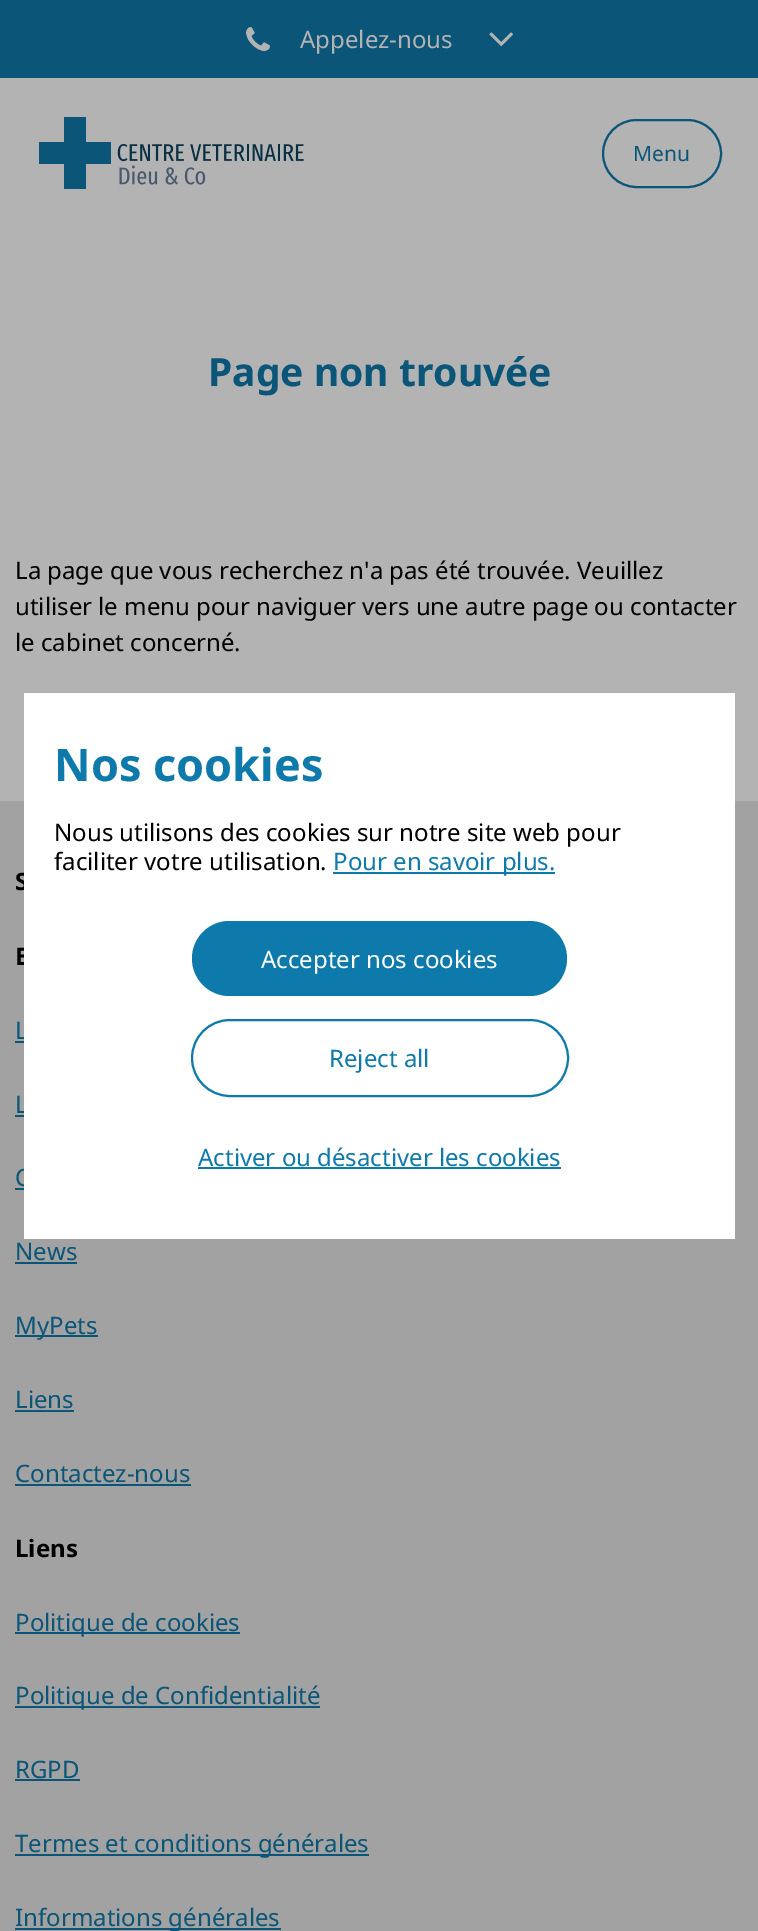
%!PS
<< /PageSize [758 1931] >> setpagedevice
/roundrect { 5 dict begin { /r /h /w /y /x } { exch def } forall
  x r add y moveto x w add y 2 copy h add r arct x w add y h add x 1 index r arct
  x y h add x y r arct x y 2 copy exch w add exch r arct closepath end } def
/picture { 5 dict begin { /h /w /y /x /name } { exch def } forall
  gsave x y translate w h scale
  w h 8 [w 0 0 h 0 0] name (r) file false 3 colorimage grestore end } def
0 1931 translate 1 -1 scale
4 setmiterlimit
0.702 setgray
0 0 758 1931 rectfill
0.039 0.333 0.471 setrgbcolor
0 0 758 78 rectfill
(img1.rgb) 246 27 24 25 picture
/NotoSans-Regular [24 0 0 -24 0 0] selectfont
0.702 setgray
300 48 moveto (Appelez-nous) show
(img2.rgb) 489 32 24 15 picture
(img3.rgb) 39 117 265 72 picture
0.039 0.333 0.471 setrgbcolor
2 setlinewidth
603 120 118 67 33.5 roundrect stroke
/NotoSans-Regular [21 0 0 -21 0 0] selectfont
633 161 moveto (Menu) show
/NotoSans-Bold [39 0 0 -39 0 0] selectfont
208 386 moveto (Page non trouvée) show
/NotoSans-Regular [24 0 0 -24 0 0] selectfont
0 setgray
15 579 moveto (La page que vous recherchez n'a pas été trouvée. Veuillez) show
15 615 moveto (utiliser le menu pour naviguer vers une autre page ou contacter) show
15 651 moveto (le cabinet concerné.) show
0.635 setgray
0 801 758 1130 rectfill
/NotoSans-Bold [24 0 0 -24 0 0] selectfont
0 setgray
15 890 moveto (S) show
15 965 moveto (E) show
/NotoSans-Regular [24 0 0 -24 0 0] selectfont
0.039 0.333 0.471 setrgbcolor
15 1039 moveto (L) show
15 1041 9 2 rectfill
15 1113 moveto (L) show
15 1115 9 2 rectfill
15 1186 moveto (C) show
15 1188 9 2 rectfill
15 1260 moveto (News) show
15 1262 62 2 rectfill
15 1335 83 2 rectfill
15 1334 moveto (MyPets) show
15 1408 moveto (Liens) show
15 1410 59 2 rectfill
15 1482 moveto (Contactez-nous) show
15 1484 176 2 rectfill
/NotoSans-Bold [24 0 0 -24 0 0] selectfont
0 setgray
15 1557 moveto (Liens) show
0.039 0.333 0.471 setrgbcolor
15 1632 225 2 rectfill
/NotoSans-Regular [24 0 0 -24 0 0] selectfont
15 1631 moveto (Politique de cookies) show
15 1706 305 2 rectfill
15 1704 moveto (Politique de Confidentialité) show
15 1778 moveto (RGPD) show
15 1779 65 2 rectfill
15 1854 354 2 rectfill
15 1852 moveto (Termes et conditions générales) show
15 1928 266 2 rectfill
15 1926 moveto (Informations générales) show
1 setgray
24 693 711 546 rectfill
/NotoSans-Bold [45 0 0 -45 0 0] selectfont
0.055 0.478 0.671 setrgbcolor
54 781 moveto (Nos cookies) show
/NotoSans-Regular [24 0 0 -24 0 0] selectfont
0 setgray
54 841 moveto (Nous utilisons des cookies sur notre site web pour) show
54 870 moveto (faciliter votre utilisation.) show
0.055 0.478 0.671 setrgbcolor
333 872 222 2 rectfill
333 870 moveto (Pour en savoir plus.) show
192 921 375 75 37.5 roundrect fill
1 setgray
261 968 moveto (Accepter nos cookies) show
0.055 0.478 0.671 setrgbcolor
192 1020 376 76 38 roundrect stroke
329 1067 moveto (Reject all) show
198 1166 moveto (Activer ou désactiver les cookies) show
198 1167 363 2 rectfill
showpage
